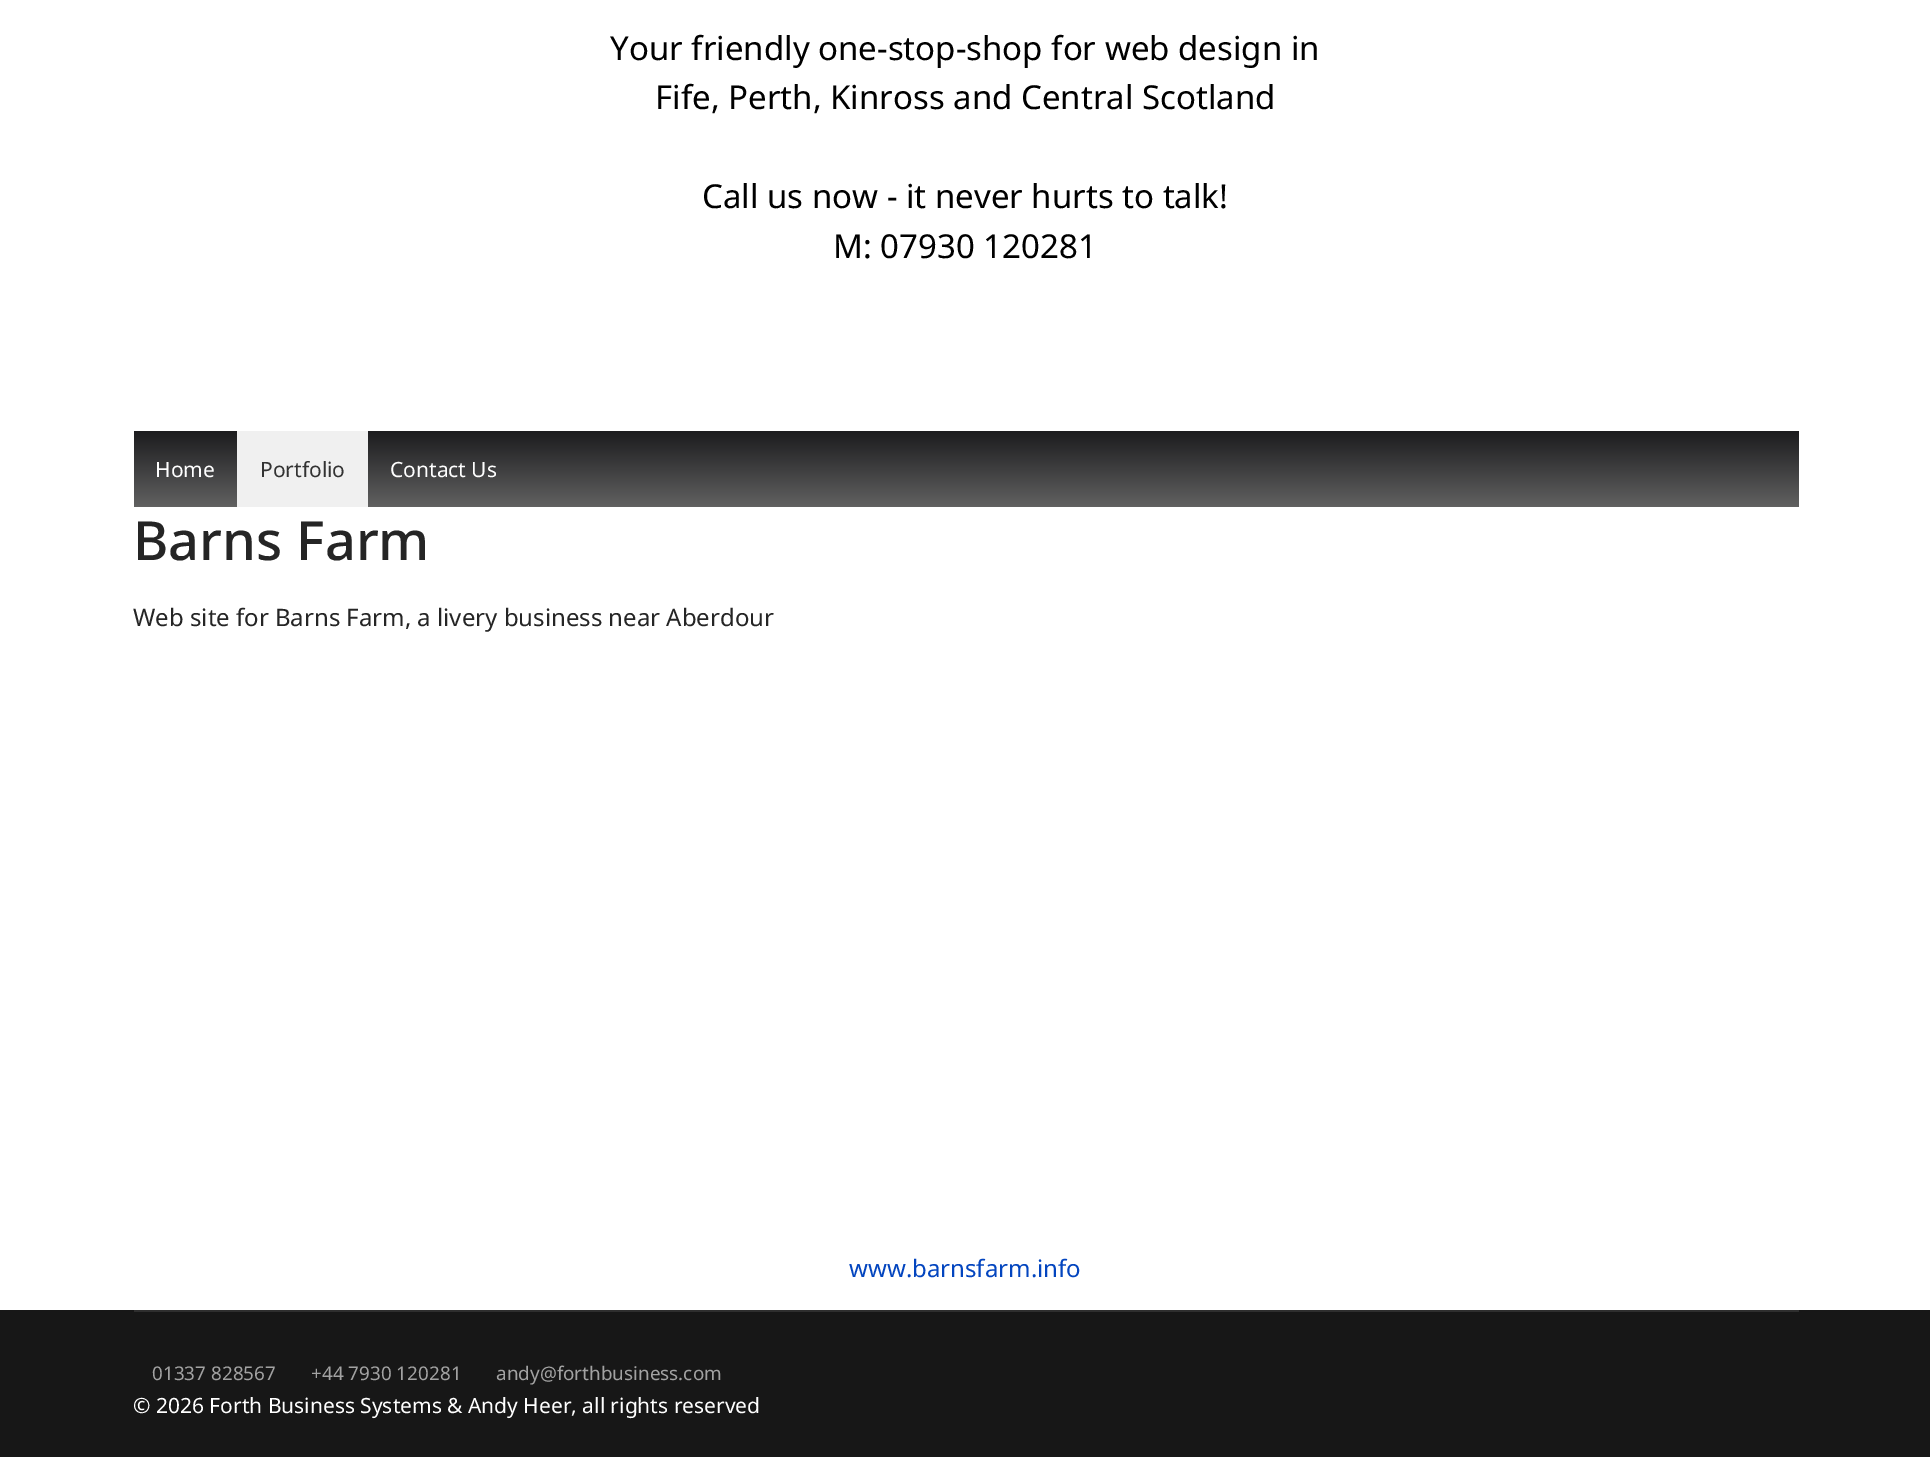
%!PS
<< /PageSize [1930 1457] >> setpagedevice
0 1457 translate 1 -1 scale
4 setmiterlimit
1 setgray
0 0 1930 1457 rectfill
/NotoSans-Regular [33 0 0 -33 0 0] selectfont
0 setgray
610 60 moveto (Your friendly one-stop-shop for web design in) show
655 109 moveto (Fife, Perth, Kinross and Central Scotland) show
702 208 moveto (Call us now - it never hurts to talk!) show
833 258 moveto (M: 07930 120281) show
gsave newpath 134 431 moveto 1799 431 lineto 1799 507 lineto 134 507 lineto closepath clip newpath
<< /ShadingType 2 /ColorSpace /DeviceRGB /Coords [966 430 966 507] /Extend [true true] /Function << /FunctionType 2 /Domain [0 1] /C0 [0.106 0.106 0.114] /C1 [0.38 0.38 0.38] /N 1 >> >> shfill grestore
/NotoSans-Regular [21 0 0 -21 0 0] selectfont
1 setgray
155 477 moveto (Home) show
0.941 setgray
237 431 131 76 rectfill
0.2 setgray
260 477 moveto (Portfolio) show
1 setgray
390 477 moveto (Contact Us) show
/NotoSans-Medium [54 0 0 -54 0 0] selectfont
0.145 setgray
133 560 moveto (Barns Farm) show
/NotoSans-Regular [24 0 0 -24 0 0] selectfont
133 626 moveto (Web site for Barns Farm, a livery business near Aberdour) show
0.012 0.271 0.749 setrgbcolor
849 1277 moveto (www.barnsfarm.info) show
0.09 setgray
0 1310 1930 147 rectfill
0.18 setgray
134 1310 1665 2 rectfill
/NotoSans-Regular [18.9 0 0 -18.9 0 0] selectfont
0.635 setgray
152 1380 moveto (01337 828567) show
311 1380 moveto (+44 7930 120281) show
496 1380 moveto (andy@forthbusiness.com) show
/NotoSans-Regular [21 0 0 -21 0 0] selectfont
1 setgray
133 1413 moveto (© 2026 Forth Business Systems & Andy Heer, all rights reserved) show
showpage
